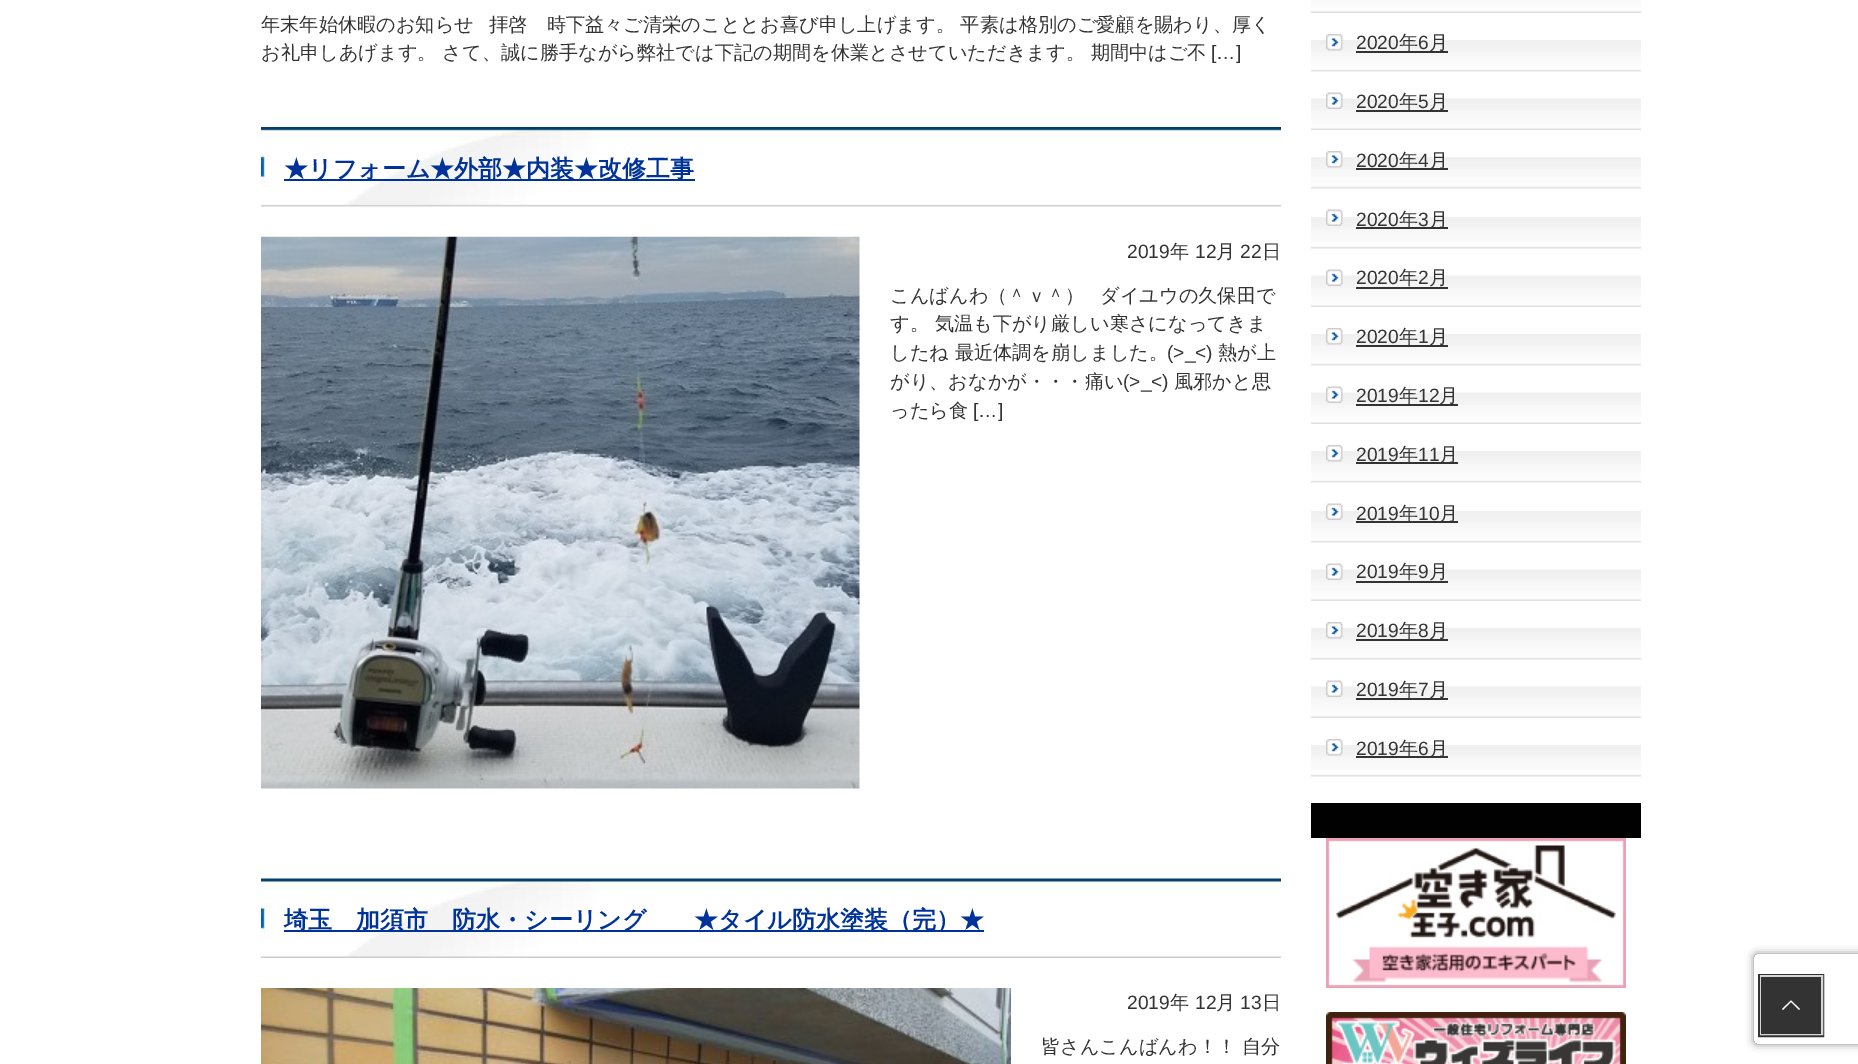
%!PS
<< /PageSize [1858 1064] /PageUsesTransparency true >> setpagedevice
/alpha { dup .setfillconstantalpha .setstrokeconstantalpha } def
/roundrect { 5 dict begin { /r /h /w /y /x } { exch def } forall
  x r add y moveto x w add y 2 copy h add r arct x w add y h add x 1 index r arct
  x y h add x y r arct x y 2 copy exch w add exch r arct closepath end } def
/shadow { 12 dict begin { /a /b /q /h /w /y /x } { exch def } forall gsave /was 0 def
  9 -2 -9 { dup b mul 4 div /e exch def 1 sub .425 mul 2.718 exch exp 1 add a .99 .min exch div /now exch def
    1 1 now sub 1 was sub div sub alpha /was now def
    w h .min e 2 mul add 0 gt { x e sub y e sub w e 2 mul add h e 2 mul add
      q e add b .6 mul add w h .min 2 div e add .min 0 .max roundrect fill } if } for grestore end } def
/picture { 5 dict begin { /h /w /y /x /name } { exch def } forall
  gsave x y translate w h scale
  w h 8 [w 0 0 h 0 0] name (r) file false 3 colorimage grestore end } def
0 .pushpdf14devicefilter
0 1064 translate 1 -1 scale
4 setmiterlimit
1 setgray
0 0 1858 1064 rectfill
/WenQuanYiZenHei-Medium [19.2 0 0 -19.2 0 0] selectfont
0.2 setgray
261 31 moveto (年末年始休暇のお知らせ) show
489 31 moveto (拝啓　時下益々ご清栄のこととお喜び申し上げます。 平素は格別のご愛顧を賜わり、厚く) show
261 59 moveto (お礼申しあげます。 さて、誠に勝手ながら弊社では下記の期間を休業とさせていただきます。 期間中はご不) show
/LiberationSans-Regular [19.2 0 0 -19.2 0 0] selectfont
1211 59 moveto ([…]) show
(img1.rgb) 261 127 1020 80 picture
0 0.2 0.6 setrgbcolor
284 179 411 2 rectfill
/WenQuanYiZenHei-Bold [24 0 0 -24 0 0] selectfont
284 177 moveto (★リフォーム★外部★内装★改修工事) show
(img2.rgb) 261 236 599 553 picture
/LiberationSans-Regular [19.2 0 0 -19.2 0 0] selectfont
0.2 setgray
1127 258 moveto (2019) show
/WenQuanYiZenHei-Medium [19.2 0 0 -19.2 0 0] selectfont
1170 258 moveto (年) show
/LiberationSans-Regular [19.2 0 0 -19.2 0 0] selectfont
1195 258 moveto (12) show
/WenQuanYiZenHei-Medium [19.2 0 0 -19.2 0 0] selectfont
1216 258 moveto (月) show
/LiberationSans-Regular [19.2 0 0 -19.2 0 0] selectfont
1240 258 moveto (22) show
/WenQuanYiZenHei-Medium [19.2 0 0 -19.2 0 0] selectfont
1262 258 moveto (日) show
890 302 moveto (こんばんわ（＾ｖ＾）) show
1100 302 moveto (ダイユウの久保田で) show
890 330 moveto (す。 気温も下がり厳しい寒さになってきま) show
890 359 moveto (したね 最近体調を崩しました。) show
/LiberationSans-Regular [19.2 0 0 -19.2 0 0] selectfont
1167 359 moveto (\(>_<\)) show
/WenQuanYiZenHei-Medium [19.2 0 0 -19.2 0 0] selectfont
1218 359 moveto (熱が上) show
890 388 moveto (がり、おなかが・・・痛い) show
/LiberationSans-Regular [19.2 0 0 -19.2 0 0] selectfont
1123 388 moveto (\(>_<\)) show
/WenQuanYiZenHei-Medium [19.2 0 0 -19.2 0 0] selectfont
1174 388 moveto (風邪かと思) show
890 417 moveto (ったら食) show
/LiberationSans-Regular [19.2 0 0 -19.2 0 0] selectfont
973 417 moveto ([…]) show
(img3.rgb) 261 878 1020 80 picture
0 0.2 0.6 setrgbcolor
284 930 700 2 rectfill
/WenQuanYiZenHei-Bold [24 0 0 -24 0 0] selectfont
284 928 moveto (埼玉　加須市　防水・シーリング　　★タイル防水塗装（完）★) show
(img4.rgb) 261 988 750 76 picture
/LiberationSans-Regular [19.2 0 0 -19.2 0 0] selectfont
0.2 setgray
1127 1009 moveto (2019) show
/WenQuanYiZenHei-Medium [19.2 0 0 -19.2 0 0] selectfont
1170 1009 moveto (年) show
/LiberationSans-Regular [19.2 0 0 -19.2 0 0] selectfont
1195 1009 moveto (12) show
/WenQuanYiZenHei-Medium [19.2 0 0 -19.2 0 0] selectfont
1216 1009 moveto (月) show
/LiberationSans-Regular [19.2 0 0 -19.2 0 0] selectfont
1240 1009 moveto (13) show
/WenQuanYiZenHei-Medium [19.2 0 0 -19.2 0 0] selectfont
1262 1009 moveto (日) show
1041 1053 moveto (皆さんこんばんわ！！ 自分) show
0.004 setgray
1311 803 330 35 rectfill
(img5.rgb) 1311 0 330 13 picture
(img6.rgb) 1311 40 330 32 picture
(img7.rgb) 1326 34 17 17 picture
/LiberationSans-Regular [19.2 0 0 -19.2 0 0] selectfont
0.2 setgray
1356 49 moveto (2020) show
1356 51 92 2 rectfill
/WenQuanYiZenHei-Medium [19.2 0 0 -19.2 0 0] selectfont
1399 49 moveto (年) show
/LiberationSans-Regular [19.2 0 0 -19.2 0 0] selectfont
1418 49 moveto (6) show
/WenQuanYiZenHei-Medium [19.2 0 0 -19.2 0 0] selectfont
1429 49 moveto (月) show
(img8.rgb) 1311 98 330 32 picture
(img9.rgb) 1326 92 17 17 picture
/LiberationSans-Regular [19.2 0 0 -19.2 0 0] selectfont
1356 108 moveto (2020) show
1356 110 92 2 rectfill
/WenQuanYiZenHei-Medium [19.2 0 0 -19.2 0 0] selectfont
1399 108 moveto (年) show
/LiberationSans-Regular [19.2 0 0 -19.2 0 0] selectfont
1418 108 moveto (5) show
/WenQuanYiZenHei-Medium [19.2 0 0 -19.2 0 0] selectfont
1429 108 moveto (月) show
(img6.rgb) 1311 157 330 32 picture
(img7.rgb) 1326 151 17 17 picture
/LiberationSans-Regular [19.2 0 0 -19.2 0 0] selectfont
1356 167 moveto (2020) show
1356 168 92 2 rectfill
/WenQuanYiZenHei-Medium [19.2 0 0 -19.2 0 0] selectfont
1399 167 moveto (年) show
/LiberationSans-Regular [19.2 0 0 -19.2 0 0] selectfont
1418 167 moveto (4) show
/WenQuanYiZenHei-Medium [19.2 0 0 -19.2 0 0] selectfont
1429 167 moveto (月) show
(img6.rgb) 1311 217 330 32 picture
(img10.rgb) 1326 209 17 17 picture
/LiberationSans-Regular [19.2 0 0 -19.2 0 0] selectfont
1356 226 moveto (2020) show
1356 227 92 2 rectfill
/WenQuanYiZenHei-Medium [19.2 0 0 -19.2 0 0] selectfont
1399 226 moveto (年) show
/LiberationSans-Regular [19.2 0 0 -19.2 0 0] selectfont
1418 226 moveto (3) show
/WenQuanYiZenHei-Medium [19.2 0 0 -19.2 0 0] selectfont
1429 226 moveto (月) show
(img8.rgb) 1311 275 330 32 picture
(img9.rgb) 1326 269 17 17 picture
/LiberationSans-Regular [19.2 0 0 -19.2 0 0] selectfont
1356 284 moveto (2020) show
/WenQuanYiZenHei-Medium [19.2 0 0 -19.2 0 0] selectfont
1399 284 moveto (年) show
/LiberationSans-Regular [19.2 0 0 -19.2 0 0] selectfont
1418 284 moveto (2) show
/WenQuanYiZenHei-Medium [19.2 0 0 -19.2 0 0] selectfont
1429 284 moveto (月) show
1356 287 92 2 rectfill
(img6.rgb) 1311 334 330 32 picture
(img7.rgb) 1326 328 17 17 picture
/LiberationSans-Regular [19.2 0 0 -19.2 0 0] selectfont
1356 343 moveto (2020) show
1356 345 92 2 rectfill
/WenQuanYiZenHei-Medium [19.2 0 0 -19.2 0 0] selectfont
1399 343 moveto (年) show
/LiberationSans-Regular [19.2 0 0 -19.2 0 0] selectfont
1418 343 moveto (1) show
/WenQuanYiZenHei-Medium [19.2 0 0 -19.2 0 0] selectfont
1429 343 moveto (月) show
(img8.rgb) 1311 392 330 32 picture
(img9.rgb) 1326 386 17 17 picture
/LiberationSans-Regular [19.2 0 0 -19.2 0 0] selectfont
1356 402 moveto (2019) show
1356 404 102 2 rectfill
/WenQuanYiZenHei-Medium [19.2 0 0 -19.2 0 0] selectfont
1399 402 moveto (年) show
/LiberationSans-Regular [19.2 0 0 -19.2 0 0] selectfont
1418 402 moveto (12) show
/WenQuanYiZenHei-Medium [19.2 0 0 -19.2 0 0] selectfont
1439 402 moveto (月) show
(img6.rgb) 1311 451 330 32 picture
(img7.rgb) 1326 445 17 17 picture
/LiberationSans-Regular [19.2 0 0 -19.2 0 0] selectfont
1356 461 moveto (2019) show
1356 462 102 2 rectfill
/WenQuanYiZenHei-Medium [19.2 0 0 -19.2 0 0] selectfont
1399 461 moveto (年) show
/LiberationSans-Regular [19.2 0 0 -19.2 0 0] selectfont
1418 461 moveto (11) show
/WenQuanYiZenHei-Medium [19.2 0 0 -19.2 0 0] selectfont
1439 461 moveto (月) show
(img6.rgb) 1311 511 330 32 picture
(img10.rgb) 1326 503 17 17 picture
/LiberationSans-Regular [19.2 0 0 -19.2 0 0] selectfont
1356 520 moveto (2019) show
1356 521 102 2 rectfill
/WenQuanYiZenHei-Medium [19.2 0 0 -19.2 0 0] selectfont
1399 520 moveto (年) show
/LiberationSans-Regular [19.2 0 0 -19.2 0 0] selectfont
1418 520 moveto (10) show
/WenQuanYiZenHei-Medium [19.2 0 0 -19.2 0 0] selectfont
1439 520 moveto (月) show
(img8.rgb) 1311 569 330 32 picture
(img9.rgb) 1326 563 17 17 picture
/LiberationSans-Regular [19.2 0 0 -19.2 0 0] selectfont
1356 578 moveto (2019) show
/WenQuanYiZenHei-Medium [19.2 0 0 -19.2 0 0] selectfont
1399 578 moveto (年) show
/LiberationSans-Regular [19.2 0 0 -19.2 0 0] selectfont
1418 578 moveto (9) show
/WenQuanYiZenHei-Medium [19.2 0 0 -19.2 0 0] selectfont
1429 578 moveto (月) show
1356 581 92 2 rectfill
(img6.rgb) 1311 628 330 32 picture
(img7.rgb) 1326 622 17 17 picture
/LiberationSans-Regular [19.2 0 0 -19.2 0 0] selectfont
1356 637 moveto (2019) show
1356 639 92 2 rectfill
/WenQuanYiZenHei-Medium [19.2 0 0 -19.2 0 0] selectfont
1399 637 moveto (年) show
/LiberationSans-Regular [19.2 0 0 -19.2 0 0] selectfont
1418 637 moveto (8) show
/WenQuanYiZenHei-Medium [19.2 0 0 -19.2 0 0] selectfont
1429 637 moveto (月) show
(img8.rgb) 1311 686 330 32 picture
(img9.rgb) 1326 680 17 17 picture
/LiberationSans-Regular [19.2 0 0 -19.2 0 0] selectfont
1356 696 moveto (2019) show
1356 698 92 2 rectfill
/WenQuanYiZenHei-Medium [19.2 0 0 -19.2 0 0] selectfont
1399 696 moveto (年) show
/LiberationSans-Regular [19.2 0 0 -19.2 0 0] selectfont
1418 696 moveto (7) show
/WenQuanYiZenHei-Medium [19.2 0 0 -19.2 0 0] selectfont
1429 696 moveto (月) show
(img6.rgb) 1311 745 330 32 picture
(img7.rgb) 1326 739 17 17 picture
/LiberationSans-Regular [19.2 0 0 -19.2 0 0] selectfont
1356 755 moveto (2019) show
1356 756 92 2 rectfill
/WenQuanYiZenHei-Medium [19.2 0 0 -19.2 0 0] selectfont
1399 755 moveto (年) show
/LiberationSans-Regular [19.2 0 0 -19.2 0 0] selectfont
1418 755 moveto (6) show
/WenQuanYiZenHei-Medium [19.2 0 0 -19.2 0 0] selectfont
1429 755 moveto (月) show
(img11.rgb) 1326 838 300 150 picture
(img12.rgb) 1326 1012 300 52 picture
gsave
newpath 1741 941 moveto 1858 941 lineto 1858 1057 lineto 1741 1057 lineto closepath 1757 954 moveto 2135 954 lineto 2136.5 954 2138 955.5 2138 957 curveto 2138 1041 lineto 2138 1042.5 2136.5 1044 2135 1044 curveto 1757 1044 lineto 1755.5 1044 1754 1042.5 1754 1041 curveto 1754 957 lineto 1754 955.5 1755.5 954 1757 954 curveto closepath eoclip newpath
0.502 setgray
1754 954 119 90 3 4 1 shadow
grestore
3 setlinewidth
1759.5 975.5 63 60 rectstroke
0.8 alpha
1 setgray
2 setlinewidth
1761 976 61 58 rectstroke
1 alpha
0.2 setgray
1761 977 60 57 rectfill
1 setgray
newpath 1800 1009 moveto 1799 1010 lineto 1791 1002 lineto 1783 1010 lineto 1782 1009 lineto 1791 1000.5 lineto closepath fill
.poppdf14devicefilter showpage
